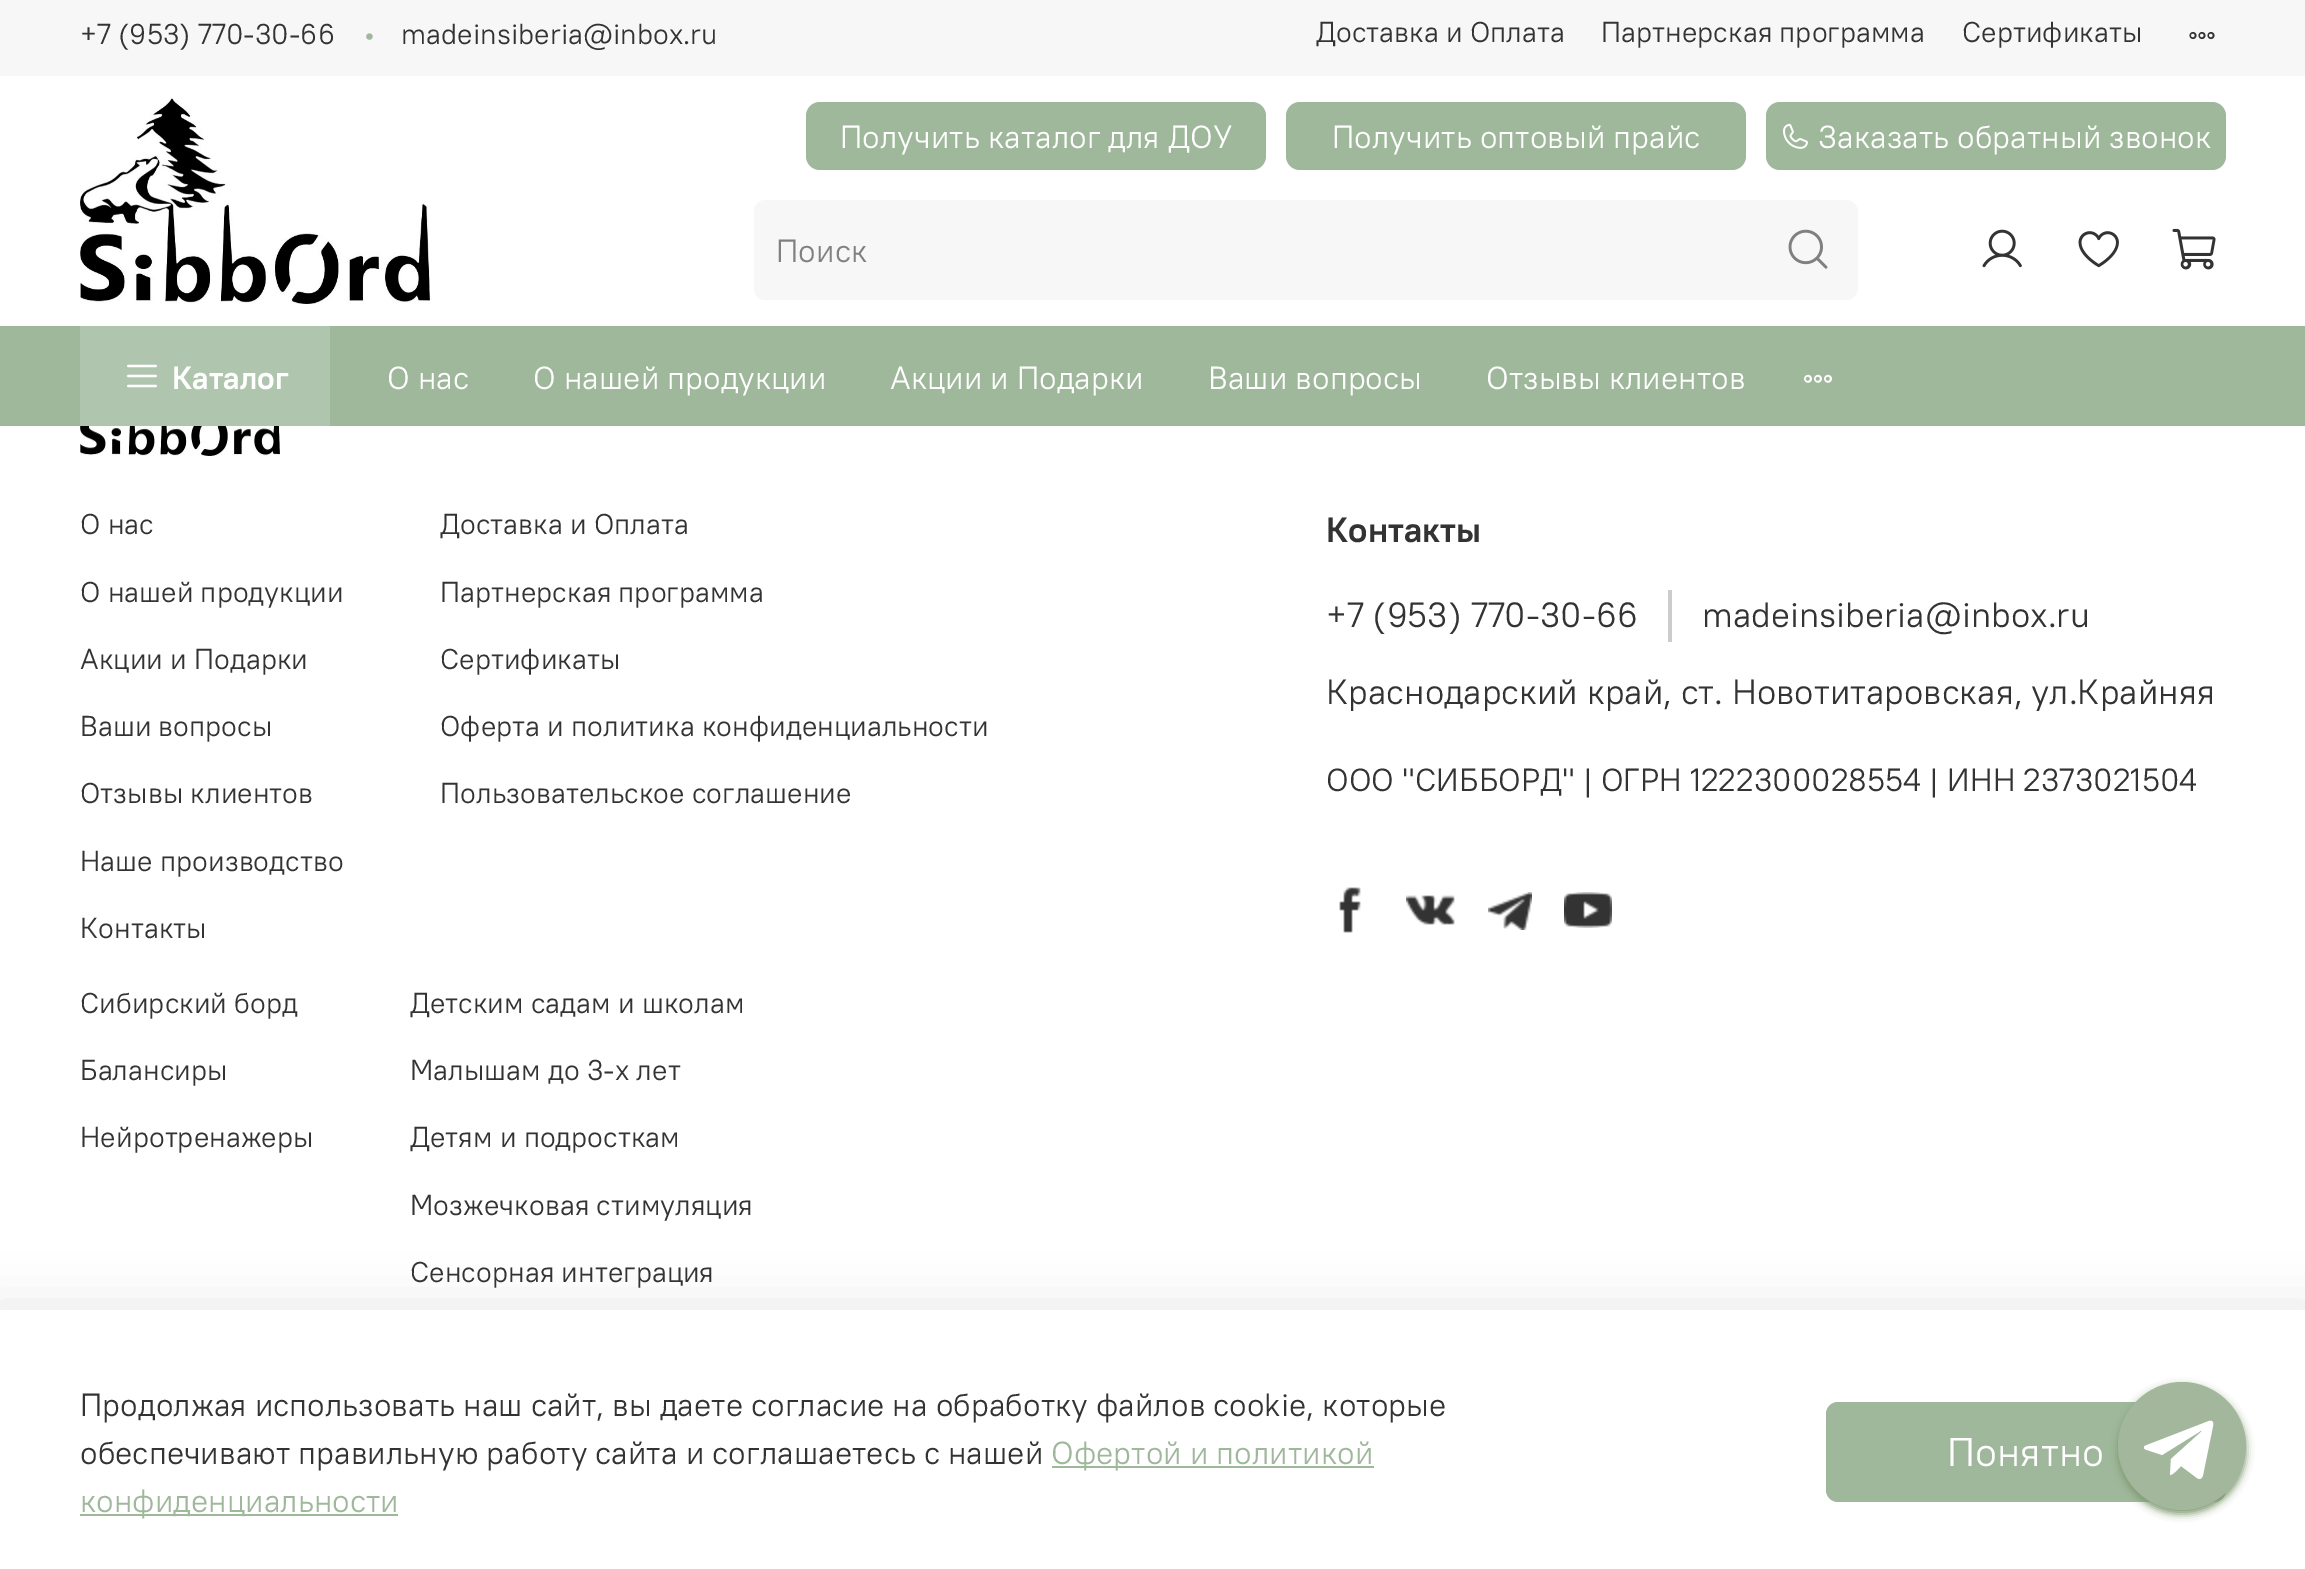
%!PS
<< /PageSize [2305 1569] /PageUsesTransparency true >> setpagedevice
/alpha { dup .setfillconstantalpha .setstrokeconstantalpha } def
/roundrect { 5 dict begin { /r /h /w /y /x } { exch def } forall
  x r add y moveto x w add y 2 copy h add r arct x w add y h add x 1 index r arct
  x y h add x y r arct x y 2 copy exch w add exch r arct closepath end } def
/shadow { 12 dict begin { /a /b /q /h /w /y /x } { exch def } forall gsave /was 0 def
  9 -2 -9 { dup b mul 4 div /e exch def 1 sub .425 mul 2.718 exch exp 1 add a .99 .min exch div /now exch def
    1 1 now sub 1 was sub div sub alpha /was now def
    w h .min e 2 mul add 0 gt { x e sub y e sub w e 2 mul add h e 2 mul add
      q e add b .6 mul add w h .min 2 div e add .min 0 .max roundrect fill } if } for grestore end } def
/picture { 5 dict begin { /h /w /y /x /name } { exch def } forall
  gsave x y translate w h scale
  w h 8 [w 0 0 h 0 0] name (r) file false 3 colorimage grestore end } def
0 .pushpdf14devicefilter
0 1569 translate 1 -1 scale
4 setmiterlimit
1 setgray
0 0 2305 1569 rectfill
0.969 setgray
0 0 2305 76 rectfill
/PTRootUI-Regular [28.75 0 0 -28.75 0 0] selectfont
0.2 setgray
80 44 moveto (+7 \(953\) 770-30-66) show
0.624 0.722 0.608 setrgbcolor
363 44 moveto (•) show
0.2 setgray
401 44 moveto (madeinsiberia@inbox.ru) show
1316 42 moveto (Доставка и Оплата) show
1601 42 moveto (Партнерская программа) show
1962 42 moveto (Сертификаты) show
(img1.rgb) 2189 31 26 9 picture
(img2.rgb) 80 98 350 206 picture
0.624 0.722 0.608 setrgbcolor
806 102 460 68 14 roundrect fill
/PTRootUI-Regular [32 0 0 -32 0 0] selectfont
1 setgray
840 148 moveto (Получить каталог для ДОУ) show
0.624 0.722 0.608 setrgbcolor
1286 102 460 68 14 roundrect fill
1 setgray
1332 148 moveto (Получить оптовый прайс) show
0.624 0.722 0.608 setrgbcolor
1766 102 460 68 14 roundrect fill
(img3.rgb) 1783 123 25 26 picture
1 setgray
1818 148 moveto (Заказать обратный звонок) show
0.969 setgray
newpath 766 200 moveto 1758 200 lineto 1758 300 lineto 766 300 lineto 759.5 300 754 294.5 754 288 curveto 754 212 lineto 754 205.5 759.5 200 766 200 curveto closepath fill
newpath 766 200 moveto 1758 200 lineto 1758 300 lineto 766 300 lineto 759 300 754 295 754 288 curveto 754 212 lineto 754 205 759 200 766 200 curveto closepath 766 202 moveto 1758 202 lineto 1758 298 lineto 766 298 lineto 760 298 756 294 756 288 curveto 756 212 lineto 756 206 760 202 766 202 curveto closepath eofill
0.502 setgray
776 262 moveto (Поиск) show
0.969 setgray
newpath 1758 200 moveto 1846 200 lineto 1852.5 200 1858 205.5 1858 212 curveto 1858 288 lineto 1858 294.5 1852.5 300 1846 300 curveto 1758 300 lineto closepath fill
(img4.rgb) 1788 229 40 40 picture
(img5.rgb) 1982 229 40 39 picture
(img6.rgb) 2078 231 41 37 picture
(img7.rgb) 2172 228 44 42 picture
0.624 0.722 0.608 setrgbcolor
0 326 2305 100 rectfill
0.69 0.773 0.678 setrgbcolor
80 326 250 100 rectfill
(img8.rgb) 127 364 30 24 picture
/PTRootUI-Bold [32 0 0 -32 0 0] selectfont
1 setgray
172 389 moveto (Каталог) show
/PTRootUI-Regular [32 0 0 -32 0 0] selectfont
387 389 moveto (О нас) show
533 389 moveto (О нашей продукции) show
890 389 moveto (Акции и Подарки) show
1208 389 moveto (Ваши вопросы) show
1486 389 moveto (Отзывы клиентов) show
(img9.rgb) 1804 374 28 9 picture
(img10.rgb) 80 426 200 30 picture
/PTRootUI-Regular [28.75 0 0 -28.75 0 0] selectfont
0.2 setgray
80 534 moveto (О нас) show
80 602 moveto (О нашей продукции) show
80 669 moveto (Акции и Подарки) show
80 736 moveto (Ваши вопросы) show
80 803 moveto (Отзывы клиентов) show
80 871 moveto (Наше производство) show
80 938 moveto (Контакты) show
440 534 moveto (Доставка и Оплата) show
440 602 moveto (Партнерская программа) show
440 669 moveto (Сертификаты) show
440 736 moveto (Оферта и политика конфиденциальности) show
440 803 moveto (Пользовательское соглашение) show
80 1013 moveto (Cибирский борд) show
80 1080 moveto (Балансиры) show
80 1147 moveto (Нейротренажеры) show
410 1013 moveto (Детским садам и школам) show
410 1080 moveto (Малышам до 3-х лет) show
410 1147 moveto (Детям и подросткам) show
410 1215 moveto (Мозжечковая стимуляция) show
410 1282 moveto (Сенсорная интеграция) show
/PTRootUI-Bold [35.2 0 0 -35.2 0 0] selectfont
1326 542 moveto (Контакты) show
0.8 setgray
1668 590 4 52 rectfill
/PTRootUI-Regular [35.2 0 0 -35.2 0 0] selectfont
0.2 setgray
1326 627 moveto (+7 \(953\) 770-30-66) show
1702 627 moveto (madeinsiberia@inbox.ru) show
1326 704 moveto (Краснодарский край, ст. Новотитаровская, ул.Крайняя) show
/PTRootUI-Regular [32 0 0 -32 0 0] selectfont
1326 791 moveto (ООО "СИББОРД" | ОГРН 1222300028554 | ИНН 2373021504) show
(img11.rgb) 1339 887 22 46 picture
(img12.rgb) 1406 895 49 30 picture
(img13.rgb) 1488 892 44 38 picture
(img14.rgb) 1564 892 48 36 picture
0 setgray
-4 1304 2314 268 0 23 0.09 shadow
1 setgray
0 1310 2305 259 rectfill
0.2 setgray
80 1416 moveto (Продолжая использовать наш сайт, вы даете согласие на обработку файлов cookie, которые) show
80 1464 moveto (обеспечивают правильную работу сайта и соглашаетесь с нашей) show
0.624 0.722 0.608 setrgbcolor
1052 1466 322 2 rectfill
1051 1464 moveto (Офертой и политикой) show
80 1514 318 2 rectfill
80 1512 moveto (конфиденциальности) show
1826 1402 400 100 12 roundrect fill
/PTRootUI-Regular [40 0 0 -40 0 0] selectfont
1 setgray
1947 1466 moveto (Понятно) show
0.49 0.596 0.435 setrgbcolor
2118 1386 128 128 64 4 1 shadow
0.639 0.718 0.616 setrgbcolor
newpath 2182 1510 moveto 2217 1510 2246 1481 2246 1446 curveto 2246 1411 2217 1382 2182 1382 curveto 2147 1382 2118 1411 2118 1446 curveto 2118 1481 2147 1510 2182 1510 curveto closepath fill
1 setgray
newpath 2147 1445 moveto 2209 1421 lineto 2212 1420 2214 1422 2213 1426 curveto 2203 1475 lineto 2202 1479 2200 1480 2197 1478 curveto 2181 1466 lineto 2179 1468 2173 1475 2170 1475 curveto 2171 1459 lineto 2201 1432 lineto 2202 1431 2201 1430 2199 1432 curveto 2162 1455 lineto 2147 1450 lineto 2143 1449 2143 1446 2147 1445 curveto closepath fill
.poppdf14devicefilter showpage
